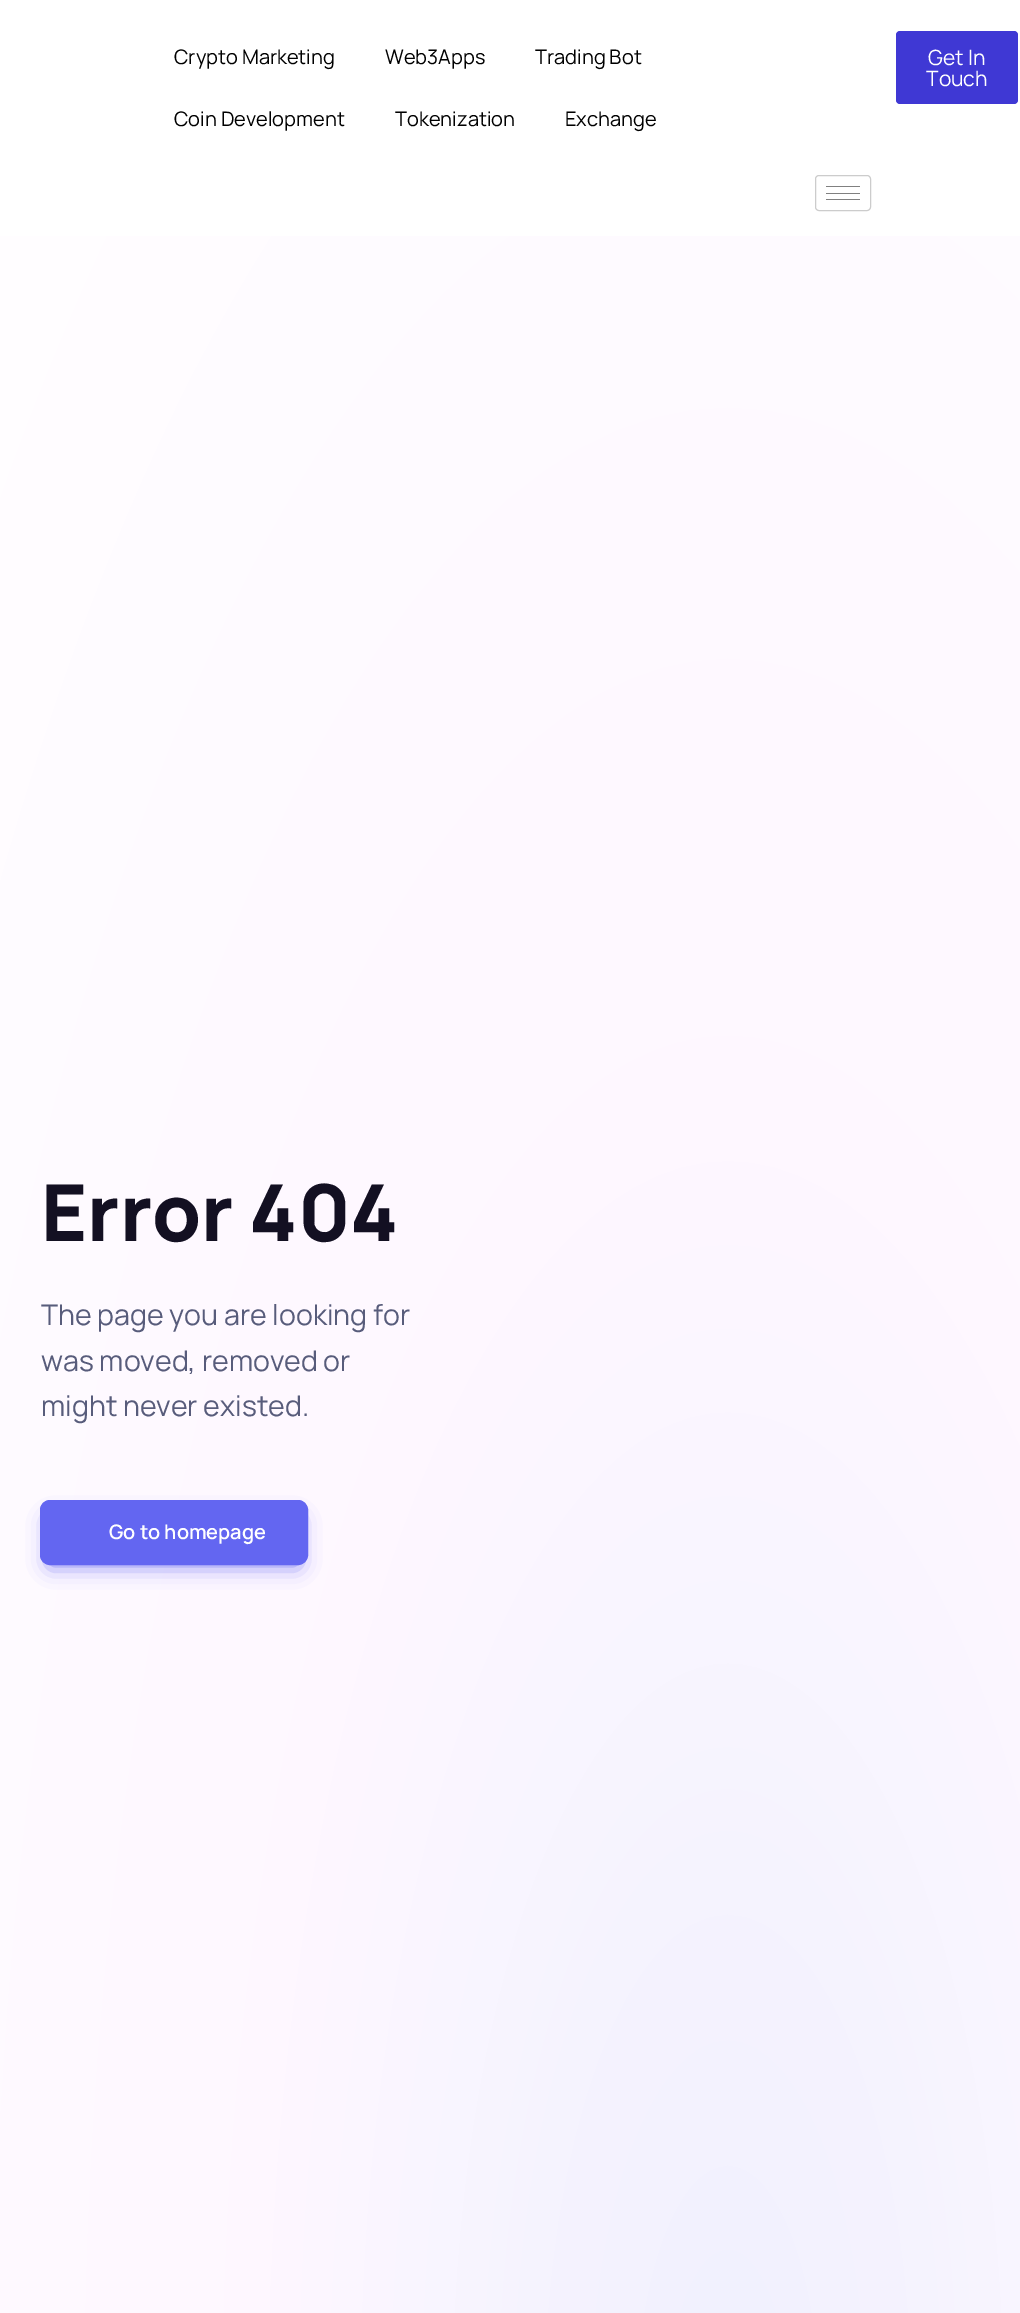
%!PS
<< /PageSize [1020 2313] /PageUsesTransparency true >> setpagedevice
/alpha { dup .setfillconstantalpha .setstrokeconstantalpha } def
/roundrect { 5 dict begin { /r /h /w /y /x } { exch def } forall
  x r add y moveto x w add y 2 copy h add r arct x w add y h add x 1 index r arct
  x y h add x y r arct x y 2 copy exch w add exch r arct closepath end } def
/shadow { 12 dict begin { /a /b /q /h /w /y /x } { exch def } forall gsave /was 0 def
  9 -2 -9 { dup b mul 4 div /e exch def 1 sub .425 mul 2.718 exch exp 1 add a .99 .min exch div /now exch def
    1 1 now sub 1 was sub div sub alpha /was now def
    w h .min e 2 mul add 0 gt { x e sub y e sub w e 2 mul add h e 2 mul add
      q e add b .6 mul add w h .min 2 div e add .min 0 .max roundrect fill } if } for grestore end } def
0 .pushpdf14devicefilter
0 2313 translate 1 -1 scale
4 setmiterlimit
1 setgray
0 0 1020 2313 rectfill
/Manrope-Regular [20 0 0 -20 0 0] selectfont
0 setgray
174 64 moveto (Crypto Marketing) show
385 64 moveto (Web3Apps) show
535 64 moveto (Trading Bot) show
174 126 moveto (Coin Development) show
395 126 moveto (Tokenization) show
565 126 moveto (Exchange) show
0.8 setgray
815.5 175.5 55 35 3.5 roundrect stroke
0.502 setgray
826 186 34 1 rectfill
826 193 34 1 rectfill
826 199 34 1 rectfill
0.247 0.22 0.831 setrgbcolor
896 31 122 73 4 roundrect fill
/Manrope-Regular [21 0 0 -21 0 0] selectfont
1 setgray
928 65 moveto (Get In) show
926 86 moveto (Touch) show
gsave newpath 0 236 moveto 1020 236 lineto 1020 2313 lineto 0 2313 lineto closepath clip newpath 728 2417 translate 1472 4019 scale
<< /ShadingType 3 /ColorSpace /DeviceRGB /Coords [0 0 0 0 0 1] /Extend [true true] /Function << /FunctionType 3 /Domain [0 1] /Functions [<< /FunctionType 2 /Domain [0 1] /C0 [0.941 0.945 0.996] /C1 [0.996 0.969 1] /N 1 >> << /FunctionType 2 /Domain [0 1] /C0 [0.996 0.969 1] /C1 [1 1 1] /N 1 >> << /FunctionType 2 /Domain [0 1] /C0 [1 1 1] /C1 [1 1 1] /N 1 >>] /Bounds [0.32 0.83] /Encode [0 1 0 1 0 1] >> >> shfill grestore
/Manrope-ExtraBold [78.5 0 0 -78.5 0 0] selectfont
0.075 0.063 0.133 setrgbcolor
41 1241 moveto (Error 404) show
/Manrope-Regular [28.5 0 0 -28.5 0 0] selectfont
0.345 0.361 0.482 setrgbcolor
41 1325 moveto (The page you are looking for) show
41 1371 moveto (was moved, removed or) show
41 1416 moveto (might never existed.) show
0.388 0.4 0.945 setrgbcolor
50 1520 248 45 0 11 0.9 shadow
40.5 1500.5 267 64 9.5 roundrect gsave fill grestore
stroke
/Manrope-SemiBold [20 0 0 -20 0 0] selectfont
1 setgray
109 1539 moveto (Go to homepage) show
.poppdf14devicefilter showpage
